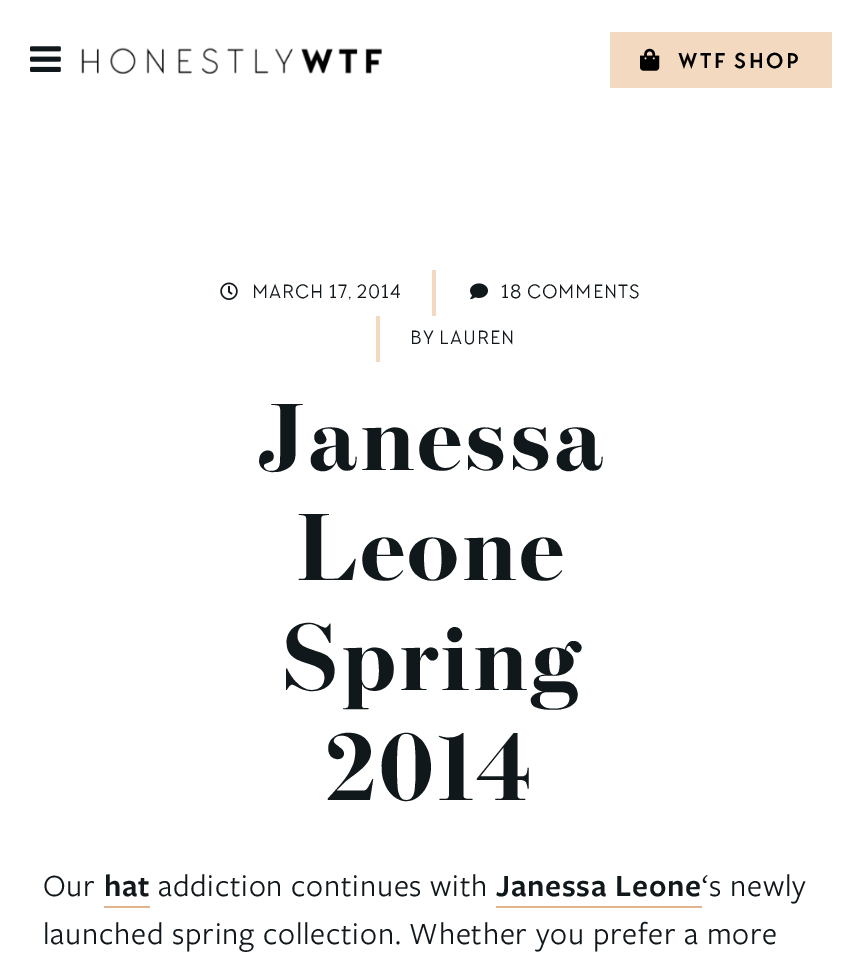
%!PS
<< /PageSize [861 967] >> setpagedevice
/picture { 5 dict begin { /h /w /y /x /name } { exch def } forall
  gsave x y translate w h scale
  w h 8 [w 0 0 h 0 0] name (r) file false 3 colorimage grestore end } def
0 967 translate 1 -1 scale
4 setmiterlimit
1 setgray
0 0 861 967 rectfill
(img1.rgb) 30 46 31 26 picture
(img2.rgb) 81 47 301 27 picture
0.949 0.851 0.753 setrgbcolor
610 32 222 56 rectfill
(img3.rgb) 640 48 20 23 picture
/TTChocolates-Bold [22 0 0 -22 0 0] selectfont
0 setgray
678 68 moveto 2.5 0 (WTF SHOP) ashow
0.949 0.851 0.753 setrgbcolor
432 270 4 46 rectfill
(img4.rgb) 220 282 18 18 picture
/TTChocolates-Regular [20 0 0 -20 0 0] selectfont
0.067 0.094 0.11 setrgbcolor
252 298 moveto 1 0 (MARCH 17, 2014) ashow
(img5.rgb) 470 283 18 17 picture
501 298 moveto 1 0 (18 COMMENTS) ashow
0.949 0.851 0.753 setrgbcolor
376 316 4 46 rectfill
0.067 0.094 0.11 setrgbcolor
410 344 moveto 1 0 (BY LAUREN) ashow
/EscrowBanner-Bold [96 0 0 -96 0 0] selectfont
257 470 moveto 2.5 0 (Janessa) ashow
296 580 moveto 2.5 0 (Leone) ashow
279 690 moveto 2.5 0 (Spring) ashow
326 800 moveto 2.5 0 (2014) ashow
/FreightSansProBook-Regular [32 0 0 -32 0 0] selectfont
43 896 moveto 0.75 0 (Our) ashow
/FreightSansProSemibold-SemiBold [32 0 0 -32 0 0] selectfont
104 896 moveto 0.75 0 (hat) ashow
0.886 0.71 0.557 setrgbcolor
104 906 46 2 rectfill
/FreightSansProBook-Regular [32 0 0 -32 0 0] selectfont
0.067 0.094 0.11 setrgbcolor
158 896 moveto 0.75 0 (addiction continues with) ashow
/FreightSansProSemibold-SemiBold [32 0 0 -32 0 0] selectfont
496 896 moveto 0.75 0 (Janessa Leone) ashow
0.886 0.71 0.557 setrgbcolor
496 906 206 2 rectfill
/FreightSansProBook-Regular [32 0 0 -32 0 0] selectfont
0.067 0.094 0.11 setrgbcolor
702 896 moveto 0.75 0 (‘s newly) ashow
43 944 moveto 0.75 0 (launched spring collection. Whether you prefer a more) ashow
showpage
